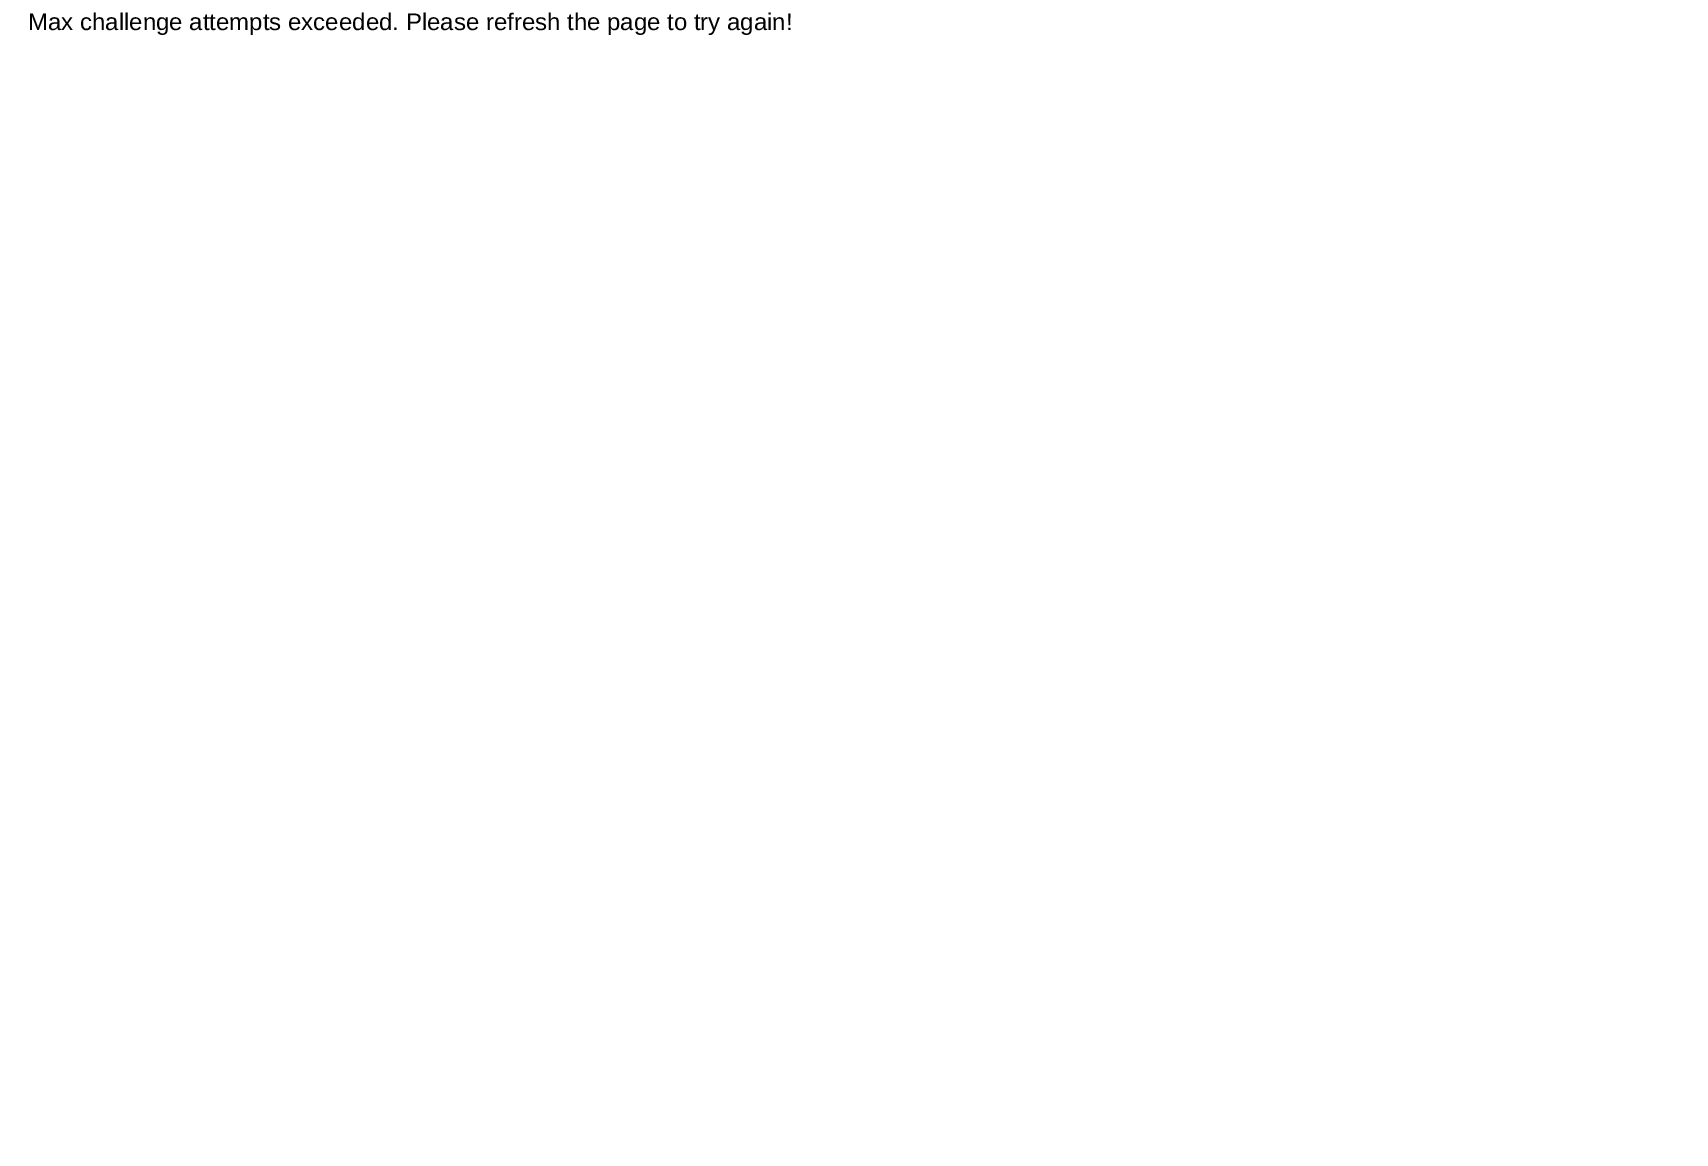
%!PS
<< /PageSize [1708 1166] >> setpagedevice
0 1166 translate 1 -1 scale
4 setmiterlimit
1 setgray
0 0 1708 1166 rectfill
/LiberationSans-Regular [24 0 0 -24 0 0] selectfont
0 setgray
28 30 moveto (Max challenge attempts exceeded. Please refresh the page to try again!) show
showpage
